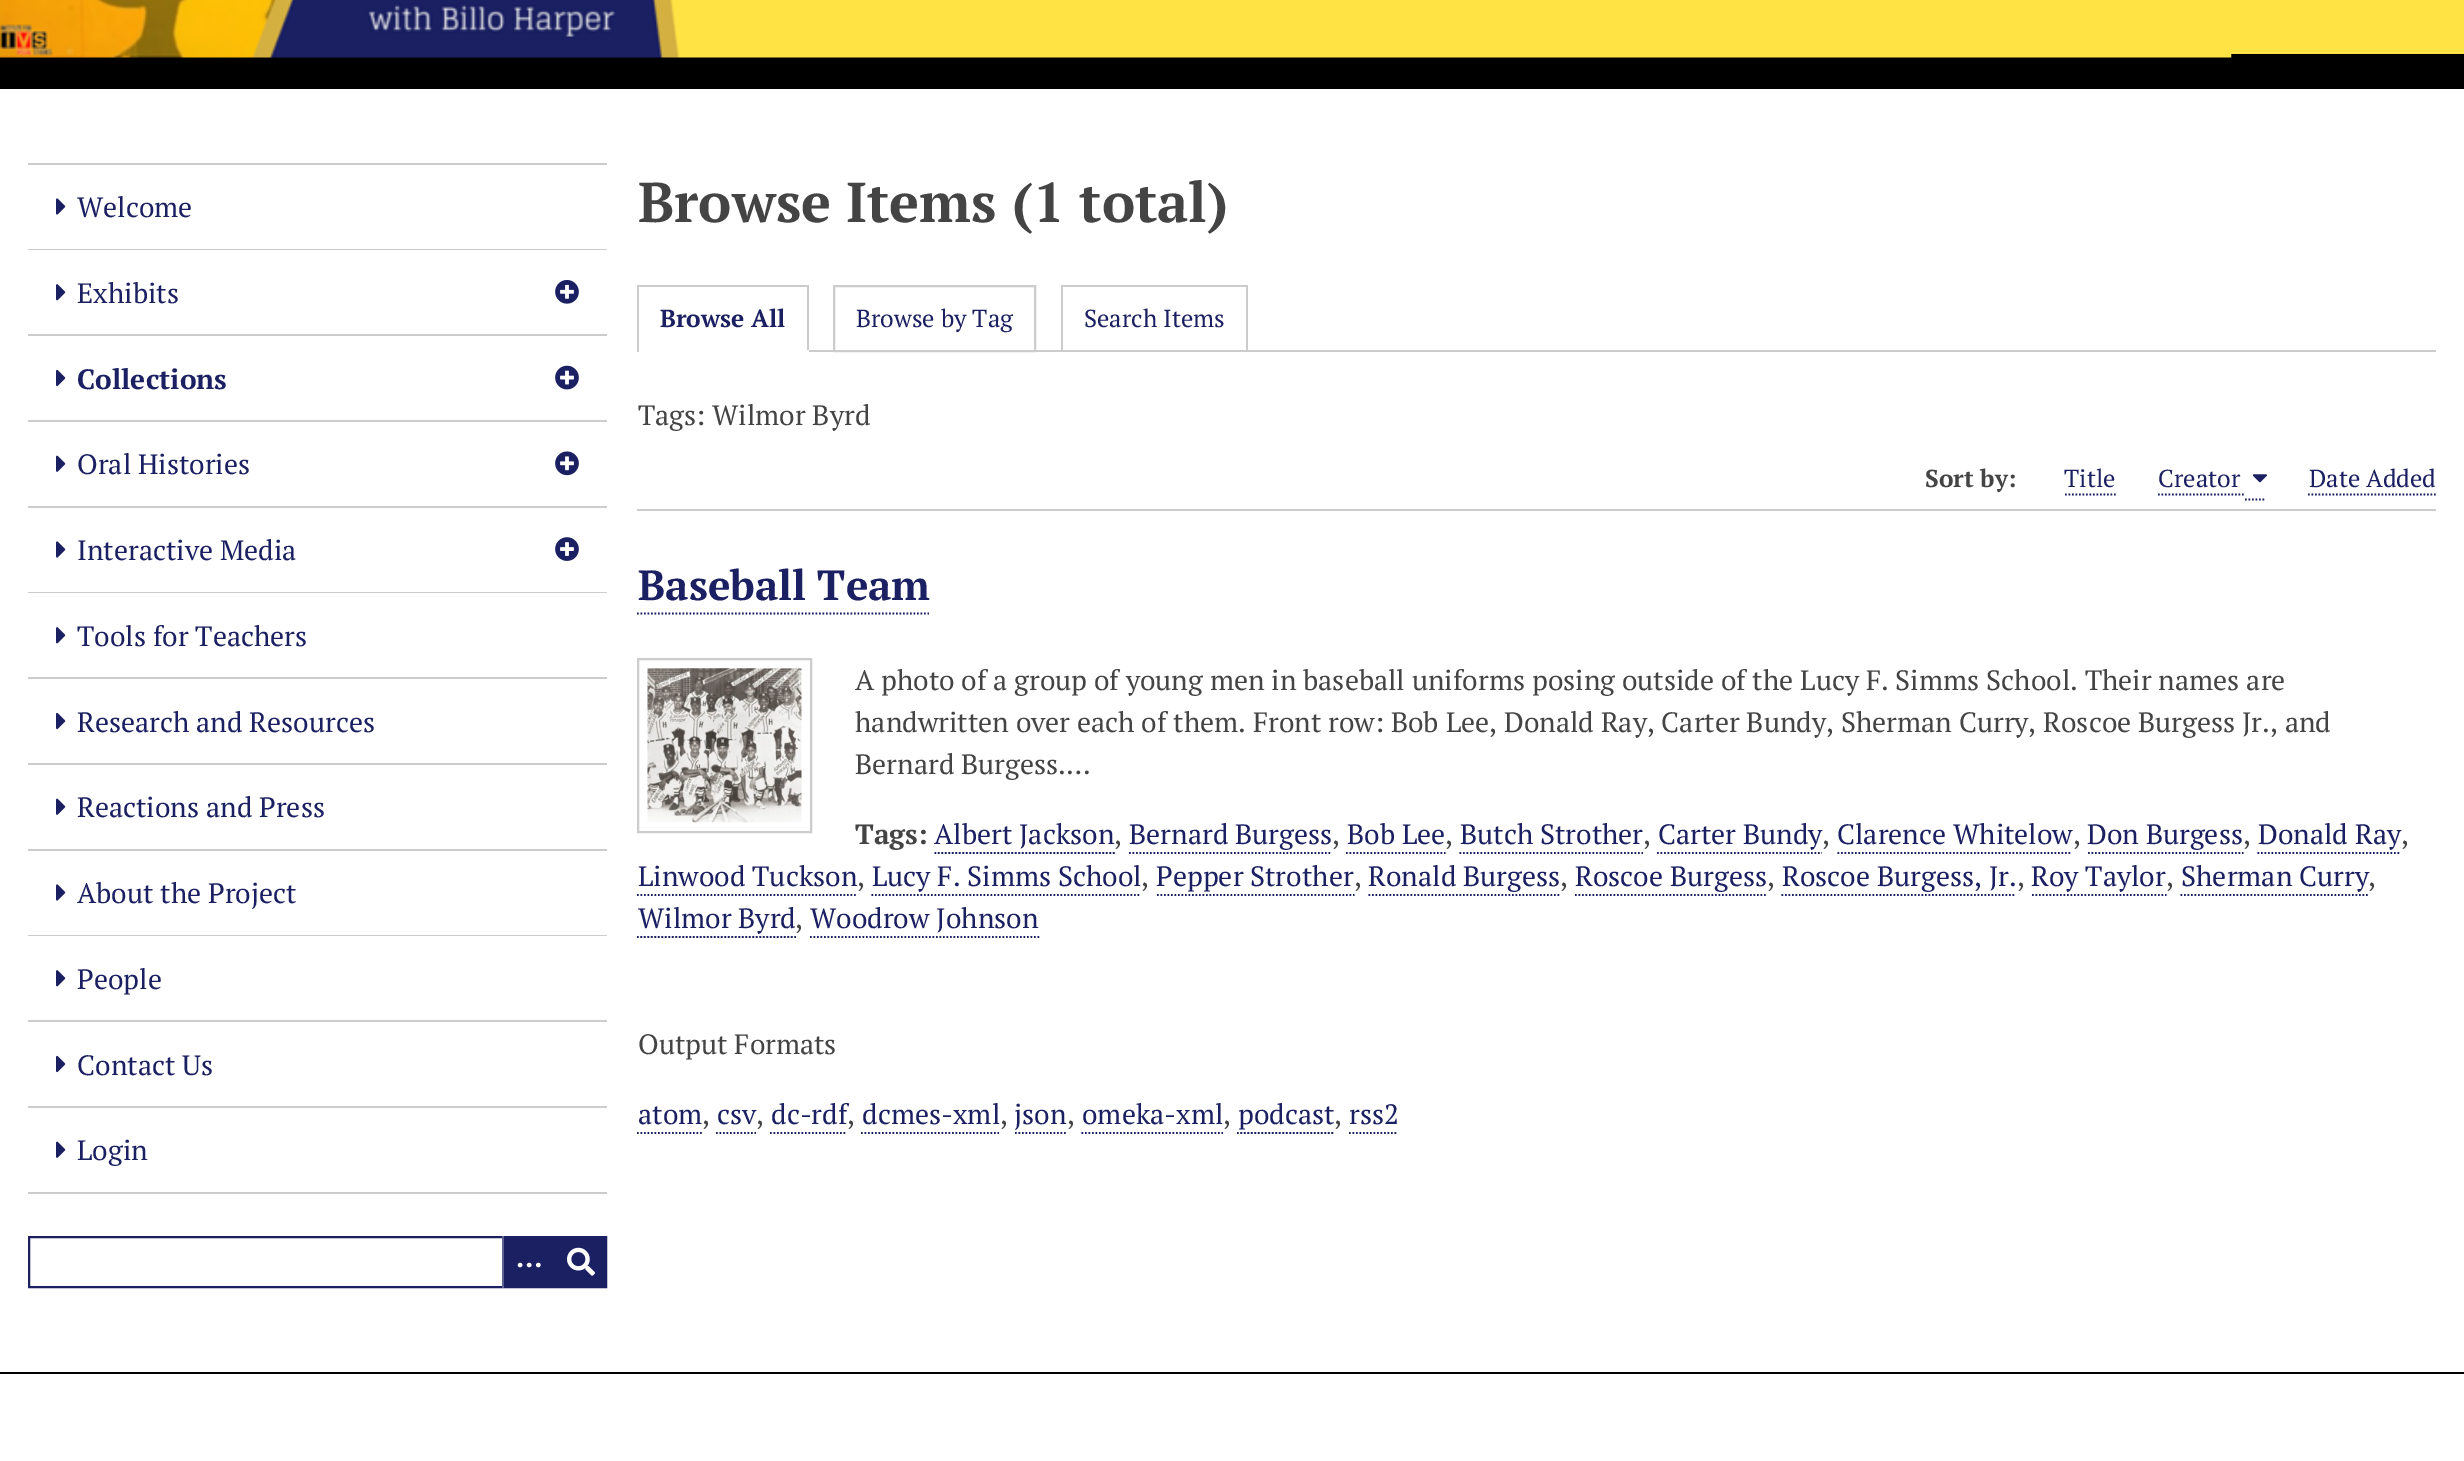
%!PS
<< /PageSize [2464 1461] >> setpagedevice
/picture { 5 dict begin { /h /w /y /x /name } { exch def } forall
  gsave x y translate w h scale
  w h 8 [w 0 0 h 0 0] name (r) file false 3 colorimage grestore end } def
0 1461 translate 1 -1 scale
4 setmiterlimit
1 setgray
0 0 2464 1461 rectfill
0 setgray
0 54 2464 35 rectfill
1 0.89 0.271 setrgbcolor
2231 0 233 54 rectfill
(img1.rgb) 0 0 2232 58 picture
0.8 setgray
28 163 579 2 rectfill
28 249 579 1 rectfill
(img2.rgb) 56 198 10 17 picture
/PTSerif-Regular [28 0 0 -28 0 0] selectfont
0.106 0.125 0.384 setrgbcolor
77 217 moveto (Welcome) show
0.8 setgray
28 334 579 2 rectfill
(img3.rgb) 56 284 10 17 picture
0.106 0.125 0.384 setrgbcolor
77 303 moveto (Exhibits) show
(img4.rgb) 555 280 24 24 picture
0.8 setgray
28 420 579 2 rectfill
(img5.rgb) 56 369 10 18 picture
/PTSerif-Bold [28 0 0 -28 0 0] selectfont
0.106 0.125 0.384 setrgbcolor
77 389 moveto (Collections) show
(img6.rgb) 555 365 24 25 picture
0.8 setgray
28 506 579 2 rectfill
(img7.rgb) 56 455 10 17 picture
/PTSerif-Regular [28 0 0 -28 0 0] selectfont
0.106 0.125 0.384 setrgbcolor
77 474 moveto (Oral Histories) show
(img8.rgb) 555 451 24 25 picture
0.8 setgray
28 592 579 1 rectfill
(img2.rgb) 56 541 10 17 picture
0.106 0.125 0.384 setrgbcolor
77 560 moveto (Interactive Media) show
(img9.rgb) 555 537 24 24 picture
0.8 setgray
28 677 579 2 rectfill
(img3.rgb) 56 627 10 17 picture
0.106 0.125 0.384 setrgbcolor
77 646 moveto (Tools for Teachers) show
0.8 setgray
28 763 579 2 rectfill
(img5.rgb) 56 712 10 18 picture
0.106 0.125 0.384 setrgbcolor
77 732 moveto (Research and Resources) show
0.8 setgray
28 849 579 2 rectfill
(img7.rgb) 56 798 10 17 picture
0.106 0.125 0.384 setrgbcolor
77 817 moveto (Reactions and Press) show
0.8 setgray
28 935 579 1 rectfill
(img2.rgb) 56 884 10 17 picture
0.106 0.125 0.384 setrgbcolor
77 903 moveto (About the Project) show
0.8 setgray
28 1020 579 2 rectfill
(img3.rgb) 56 970 10 17 picture
0.106 0.125 0.384 setrgbcolor
77 989 moveto (People) show
0.8 setgray
28 1106 579 2 rectfill
(img5.rgb) 56 1055 10 18 picture
0.106 0.125 0.384 setrgbcolor
77 1075 moveto (Contact Us) show
0.8 setgray
28 1192 579 2 rectfill
(img7.rgb) 56 1141 10 17 picture
0.106 0.125 0.384 setrgbcolor
77 1160 moveto (Login) show
2 setlinewidth
29 1237 577 50 rectstroke
504 1238 101 48 rectfill
0.373 0.388 0.569 setrgbcolor
502 1236 2 52 rectfill
/PTSerif-Bold [28 0 0 -28 0 0] selectfont
1 setgray
516 1267 moveto (…) show
(img10.rgb) 567 1247 28 29 picture
/PTSerif-Bold [56 0 0 -56 0 0] selectfont
0.267 setgray
638 222 moveto (Browse Items \(1 total\)) show
0.8 setgray
809 350 1627 2 rectfill
637 285 172 2 rectfill
807 285 2 67 rectfill
1 setgray
807 350 2 2 rectfill
0.8 setgray
637 285 2 67 rectfill
/PTSerif-Bold [24.5 0 0 -24.5 0 0] selectfont
0.106 0.125 0.384 setrgbcolor
660 327 moveto (Browse All) show
0.8 setgray
834 286 201 65 rectstroke
/PTSerif-Regular [24.5 0 0 -24.5 0 0] selectfont
0.106 0.125 0.384 setrgbcolor
856 327 moveto (Browse by Tag) show
0.8 setgray
1061 285 187 2 rectfill
1246 285 2 65 rectfill
1061 285 2 65 rectfill
0.106 0.125 0.384 setrgbcolor
1084 327 moveto (Search Items) show
/PTSerif-Regular [28 0 0 -28 0 0] selectfont
0.267 setgray
638 425 moveto (Tags: Wilmor Byrd) show
/PTSerif-Bold [24.5 0 0 -24.5 0 0] selectfont
1925 487 moveto (Sort by:) show
/PTSerif-Regular [24.5 0 0 -24.5 0 0] selectfont
0.106 0.125 0.384 setrgbcolor
2064 487 moveto (Title) show
1.8 setlinewidth
[1.75 1.75] 0 setdash
newpath 2065 494.5 moveto 2116 494.5 lineto stroke
newpath 2158 494.5 moveto 2245 494.5 lineto stroke
newpath 2245 499.5 moveto 2266 499.5 lineto stroke
2158 487 moveto (Creator) show
(img11.rgb) 2252 474 15 9 picture
2309 487 moveto (Date Added) show
newpath 2308 494.5 moveto 2436 494.5 lineto stroke
0.8 setgray
637 509 1799 2 rectfill
/PTSerif-Bold [42 0 0 -42 0 0] selectfont
0.106 0.125 0.384 setrgbcolor
638 600 moveto (Baseball Team) show
newpath 637 613.5 moveto 929 613.5 lineto stroke
0.8 setgray
2 setlinewidth
[] 0 setdash
638 659 173 173 rectstroke
(img12.rgb) 647 668 155 155 picture
/PTSerif-Regular [28 0 0 -28 0 0] selectfont
0.267 setgray
855 690 moveto (A photo of a group of young men in baseball uniforms posing outside of the Lucy F. Simms School. Their names are) show
855 732 moveto (handwritten over each of them. Front row: Bob Lee, Donald Ray, Carter Bundy, Sherman Curry, Roscoe Burgess Jr., and) show
855 774 moveto (Bernard Burgess.…) show
/PTSerif-Bold [28 0 0 -28 0 0] selectfont
855 844 moveto (Tags:) show
/PTSerif-Regular [28 0 0 -28 0 0] selectfont
0.106 0.125 0.384 setrgbcolor
934 844 moveto (Albert Jackson) show
1.8 setlinewidth
[1.75 1.75] 0 setdash
newpath 934.5 853 moveto 1115 853 lineto stroke
0.267 setgray
1114 844 moveto (,) show
0.106 0.125 0.384 setrgbcolor
1129 844 moveto (Bernard Burgess) show
newpath 1129 853 moveto 1332 853 lineto stroke
0.267 setgray
1332 844 moveto (,) show
0.106 0.125 0.384 setrgbcolor
1347 844 moveto (Bob Lee) show
newpath 1346 853 moveto 1445.5 853 lineto stroke
0.267 setgray
1445 844 moveto (,) show
0.106 0.125 0.384 setrgbcolor
1460 844 moveto (Butch Strother) show
newpath 1459.5 853 moveto 1643 853 lineto stroke
0.267 setgray
1643 844 moveto (,) show
0.106 0.125 0.384 setrgbcolor
1658 844 moveto (Carter Bundy) show
newpath 1657 853 moveto 1822 853 lineto stroke
0.267 setgray
1822 844 moveto (,) show
0.106 0.125 0.384 setrgbcolor
1837 844 moveto (Clarence Whitelow) show
newpath 1837.5 853 moveto 2072 853 lineto stroke
0.267 setgray
2073 844 moveto (,) show
0.106 0.125 0.384 setrgbcolor
2087 844 moveto (Don Burgess) show
newpath 2088 853 moveto 2243.5 853 lineto stroke
0.267 setgray
2243 844 moveto (,) show
0.106 0.125 0.384 setrgbcolor
2258 844 moveto (Donald Ray) show
newpath 2257.5 853 moveto 2401 853 lineto stroke
0.267 setgray
2401 844 moveto (,) show
0.106 0.125 0.384 setrgbcolor
638 886 moveto (Linwood Tuckson) show
newpath 637 895 moveto 857.5 895 lineto stroke
0.267 setgray
857 886 moveto (,) show
0.106 0.125 0.384 setrgbcolor
872 886 moveto (Lucy F. Simms School) show
newpath 871.5 895 moveto 1141 895 lineto stroke
0.267 setgray
1141 886 moveto (,) show
0.106 0.125 0.384 setrgbcolor
1156 886 moveto (Pepper Strother) show
newpath 1157 895 moveto 1354.5 895 lineto stroke
0.267 setgray
1354 886 moveto (,) show
0.106 0.125 0.384 setrgbcolor
1368 886 moveto (Ronald Burgess) show
newpath 1368.5 895 moveto 1561 895 lineto stroke
0.267 setgray
1560 886 moveto (,) show
0.106 0.125 0.384 setrgbcolor
1575 886 moveto (Roscoe Burgess) show
newpath 1575 895 moveto 1767.5 895 lineto stroke
0.267 setgray
1767 886 moveto (,) show
0.106 0.125 0.384 setrgbcolor
1782 886 moveto (Roscoe Burgess, Jr.) show
newpath 1781.5 895 moveto 2016 895 lineto stroke
0.267 setgray
2017 886 moveto (,) show
0.106 0.125 0.384 setrgbcolor
2031 886 moveto (Roy Taylor) show
newpath 2032 895 moveto 2166.5 895 lineto stroke
0.267 setgray
2166 886 moveto (,) show
0.106 0.125 0.384 setrgbcolor
2181 886 moveto (Sherman Curry) show
newpath 2180.5 895 moveto 2368 895 lineto stroke
0.267 setgray
2368 886 moveto (,) show
0.106 0.125 0.384 setrgbcolor
638 928 moveto (Wilmor Byrd) show
newpath 637 937 moveto 796 937 lineto stroke
0.267 setgray
795 928 moveto (,) show
0.106 0.125 0.384 setrgbcolor
810 928 moveto (Woodrow Johnson) show
newpath 810 937 moveto 1039.5 937 lineto stroke
0.267 setgray
638 1054 moveto (Output Formats) show
0.106 0.125 0.384 setrgbcolor
638 1124 moveto (atom) show
newpath 637 1133 moveto 702 1133 lineto stroke
0.267 setgray
702 1124 moveto (,) show
0.106 0.125 0.384 setrgbcolor
717 1124 moveto (csv) show
newpath 716 1133 moveto 756 1133 lineto stroke
0.267 setgray
756 1124 moveto (,) show
0.106 0.125 0.384 setrgbcolor
771 1124 moveto (dc-rdf) show
newpath 770 1133 moveto 847 1133 lineto stroke
0.267 setgray
847 1124 moveto (,) show
0.106 0.125 0.384 setrgbcolor
862 1124 moveto (dcmes-xml) show
newpath 861 1133 moveto 999 1133 lineto stroke
0.267 setgray
1000 1124 moveto (,) show
0.106 0.125 0.384 setrgbcolor
1014 1124 moveto (json) show
newpath 1015 1133 moveto 1067.5 1133 lineto stroke
0.267 setgray
1067 1124 moveto (,) show
0.106 0.125 0.384 setrgbcolor
1082 1124 moveto (omeka-xml) show
newpath 1081.5 1133 moveto 1223 1133 lineto stroke
0.267 setgray
1223 1124 moveto (,) show
0.106 0.125 0.384 setrgbcolor
1238 1124 moveto (podcast) show
newpath 1237 1133 moveto 1333.5 1133 lineto stroke
0.267 setgray
1334 1124 moveto (,) show
0.106 0.125 0.384 setrgbcolor
1349 1124 moveto (rss2) show
newpath 1349 1133 moveto 1398 1133 lineto stroke
0 setgray
0 1372 2464 2 rectfill
showpage
